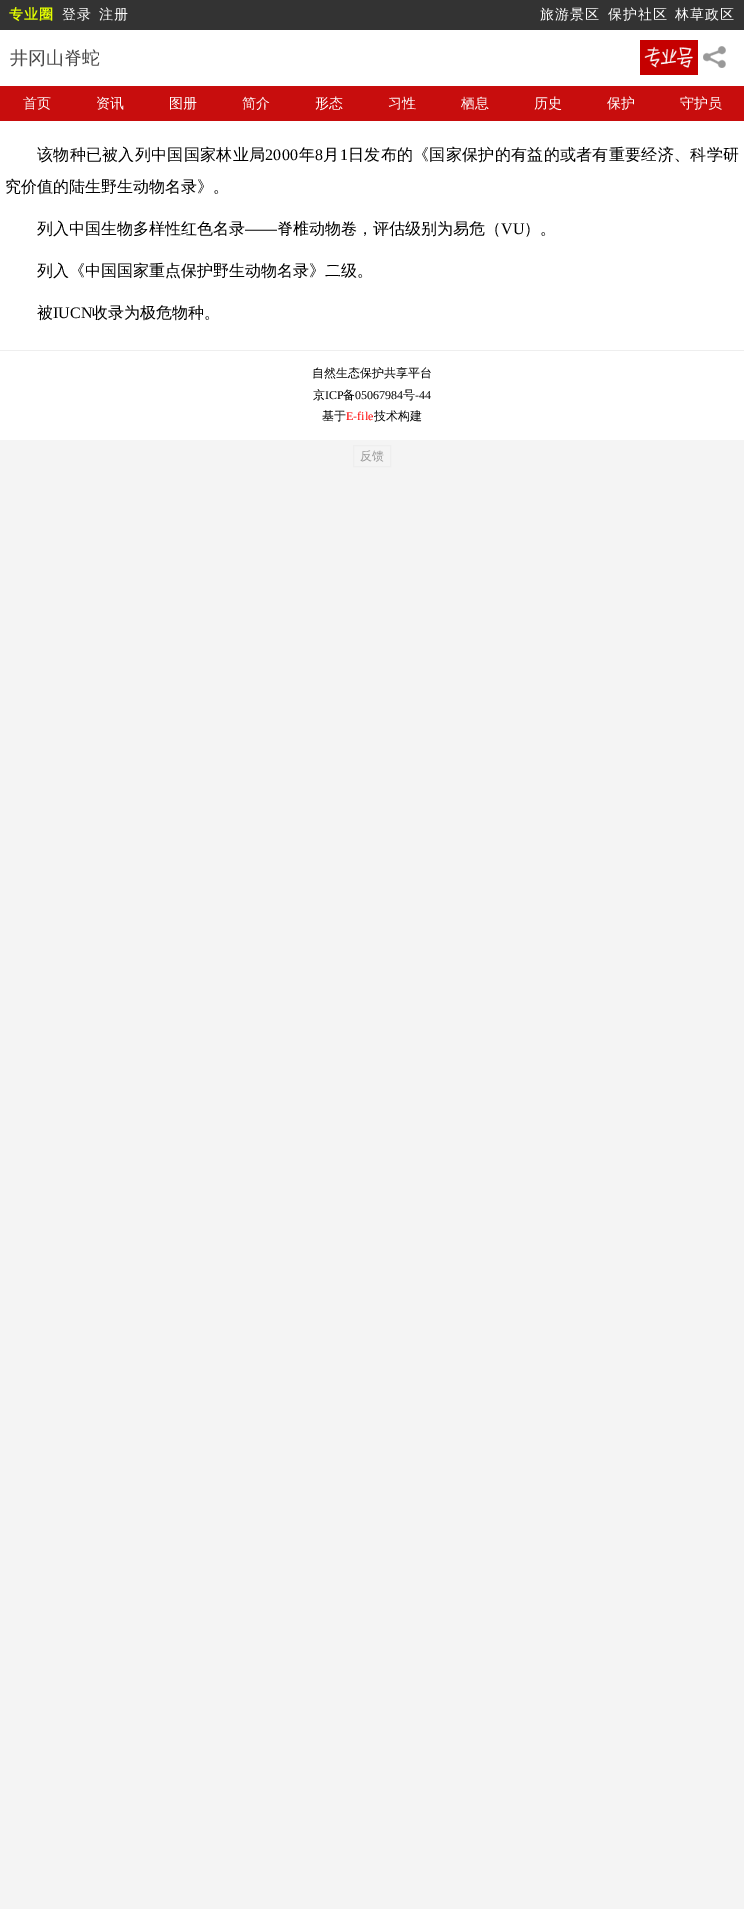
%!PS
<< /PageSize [744 1909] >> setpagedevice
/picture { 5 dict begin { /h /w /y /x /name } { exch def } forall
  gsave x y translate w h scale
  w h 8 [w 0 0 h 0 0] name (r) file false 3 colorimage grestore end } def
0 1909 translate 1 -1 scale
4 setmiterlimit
0.957 setgray
0 0 744 1909 rectfill
1 setgray
0 30 744 410 rectfill
0.2 setgray
0 0 744 30 rectfill
/WenQuanYiZenHei-Bold [14 0 0 -14 0 0] selectfont
0.894 1 0 setrgbcolor
9 19 moveto 1 0 (专业圈) ashow
/WenQuanYiZenHei-Medium [14 0 0 -14 0 0] selectfont
1 setgray
62 19 moveto 1 0 (登录) ashow
99 19 moveto 1 0 (注册) ashow
540 19 moveto 1 0 (旅游景区) ashow
608 19 moveto 1 0 (保护社区) ashow
675 19 moveto 1 0 (林草政区) ashow
/WenQuanYiZenHei-Medium [18 0 0 -18 0 0] selectfont
0.286 0.282 0.282 setrgbcolor
10 64 moveto (井冈山脊蛇) show
(img1.rgb) 640 40 58 35 picture
(img2.rgb) 703 46 23 22 picture
0.784 0.051 0.051 setrgbcolor
0 86 744 35 rectfill
/WenQuanYiZenHei-Medium [14 0 0 -14 0 0] selectfont
1 setgray
23 108 moveto (首页) show
96 108 moveto (资讯) show
169 108 moveto (图册) show
242 108 moveto (简介) show
315 108 moveto (形态) show
388 108 moveto (习性) show
461 108 moveto (栖息) show
534 108 moveto (历史) show
607 108 moveto (保护) show
680 108 moveto (守护员) show
/WenQuanYiZenHei-Medium [16 0 0 -16 0 0] selectfont
0 setgray
37 160 moveto 0.3 0 (该物种已被入列中国国家林业局) ashow
/LiberationSerif-Regular [16 0 0 -16 0 0] selectfont
265 160 moveto 0.3 0 (2000) ashow
/WenQuanYiZenHei-Medium [16 0 0 -16 0 0] selectfont
299 160 moveto 0.3 0 (年) ashow
/LiberationSerif-Regular [16 0 0 -16 0 0] selectfont
315 160 moveto 0.3 0 (8) ashow
/WenQuanYiZenHei-Medium [16 0 0 -16 0 0] selectfont
323 160 moveto 0.3 0 (月) ashow
/LiberationSerif-Regular [16 0 0 -16 0 0] selectfont
340 160 moveto 0.3 0 (1) ashow
/WenQuanYiZenHei-Medium [16 0 0 -16 0 0] selectfont
348 160 moveto 0.3 0 (日发布的《国家保护的有益的或者有重要经济、科学研) ashow
5 192 moveto (究价值的陆生野生动物名录》。) show
37 234 moveto (列入中国生物多样性红色名录) show
/LiberationSerif-Regular [16 0 0 -16 0 0] selectfont
245 234 moveto (——) show
/WenQuanYiZenHei-Medium [16 0 0 -16 0 0] selectfont
277 234 moveto (脊椎动物卷，评估级别为易危（) show
/LiberationSerif-Regular [16 0 0 -16 0 0] selectfont
501 234 moveto (VU) show
/WenQuanYiZenHei-Medium [16 0 0 -16 0 0] selectfont
524 234 moveto (）。) show
37 276 moveto (列入《中国国家重点保护野生动物名录》二级。) show
37 318 moveto (被) show
/LiberationSerif-Regular [16 0 0 -16 0 0] selectfont
53 318 moveto (IUCN) show
/WenQuanYiZenHei-Medium [16 0 0 -16 0 0] selectfont
92 318 moveto (收录为极危物种。) show
0.933 setgray
0 350 744 1 rectfill
/WenQuanYiZenHei-Medium [12 0 0 -12 0 0] selectfont
0 setgray
312 377 moveto (自然生态保护共享平台) show
313 399 moveto (京) show
/LiberationSerif-Regular [12 0 0 -12 0 0] selectfont
325 399 moveto (ICP) show
/WenQuanYiZenHei-Medium [12 0 0 -12 0 0] selectfont
343 399 moveto (备) show
/LiberationSerif-Regular [12 0 0 -12 0 0] selectfont
355 399 moveto (05067984) show
/WenQuanYiZenHei-Medium [12 0 0 -12 0 0] selectfont
403 399 moveto (号) show
/LiberationSerif-Regular [12 0 0 -12 0 0] selectfont
415 399 moveto (-44) show
/WenQuanYiZenHei-Medium [12 0 0 -12 0 0] selectfont
322 420 moveto (基于) show
/LiberationSerif-Regular [12 0 0 -12 0 0] selectfont
1 0 0 setrgbcolor
346 420 moveto (E-file) show
/WenQuanYiZenHei-Medium [12 0 0 -12 0 0] selectfont
0 setgray
374 420 moveto (技术构建) show
0.933 setgray
353.5 445.5 37 21 rectstroke
0.6 setgray
360 460 moveto (反馈) show
showpage
